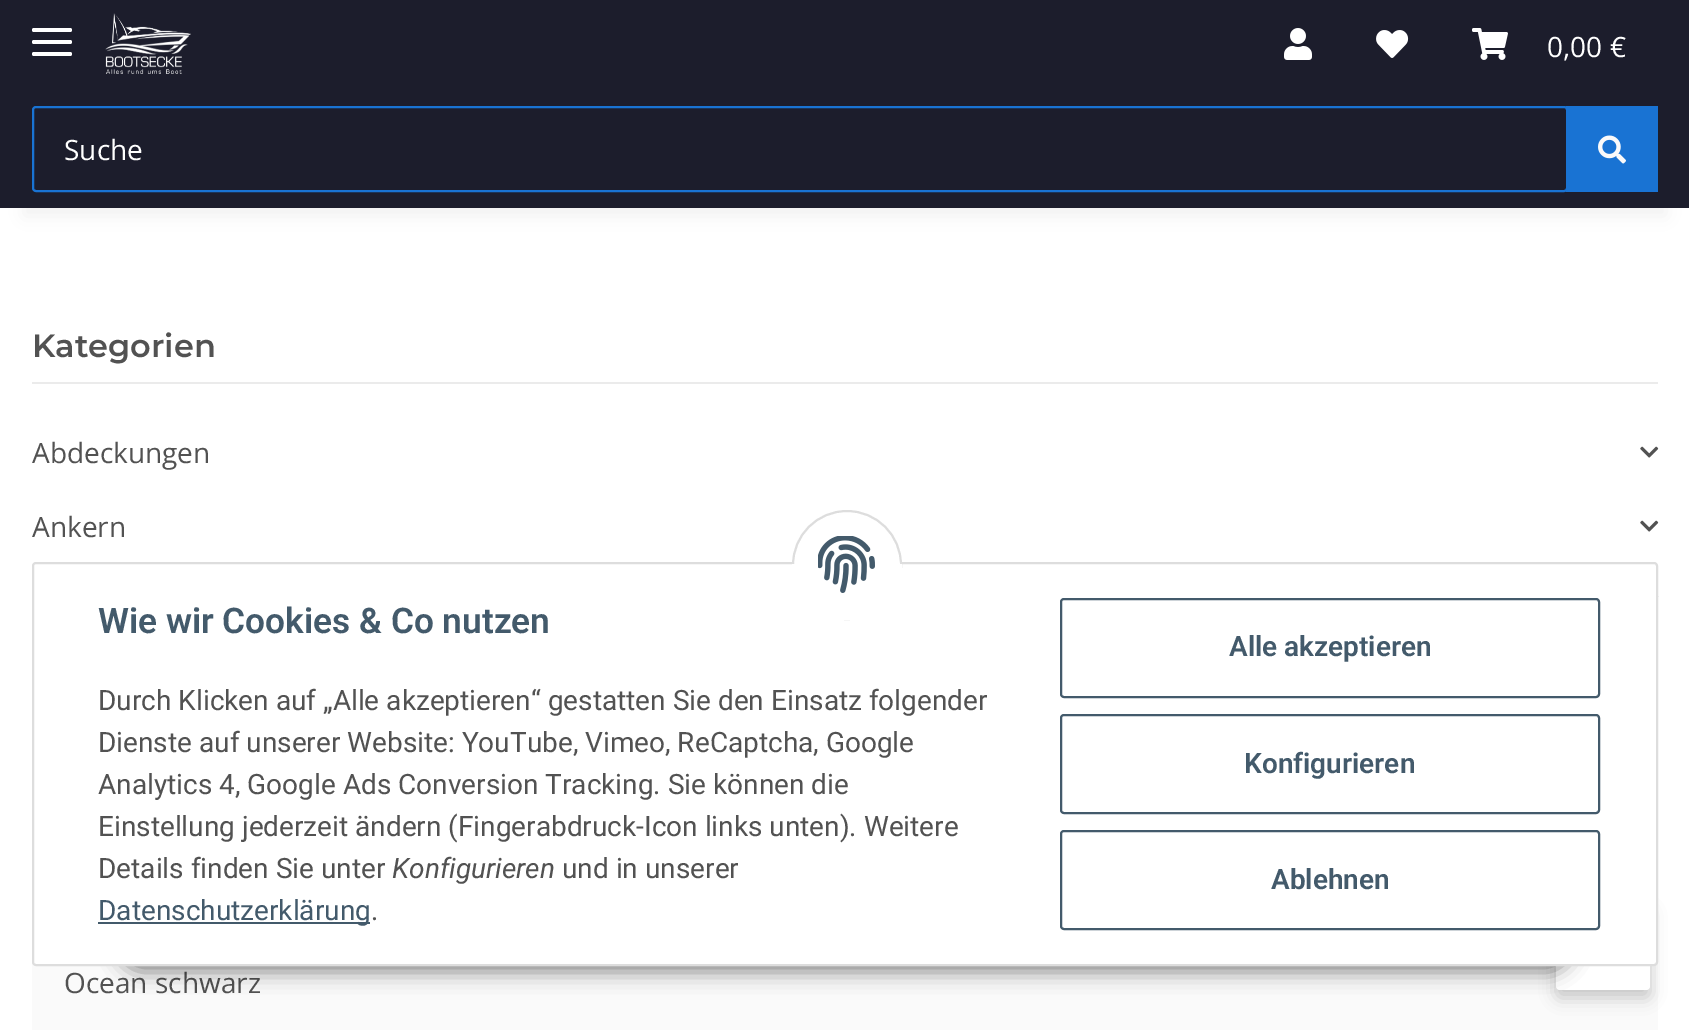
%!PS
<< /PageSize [1689 1030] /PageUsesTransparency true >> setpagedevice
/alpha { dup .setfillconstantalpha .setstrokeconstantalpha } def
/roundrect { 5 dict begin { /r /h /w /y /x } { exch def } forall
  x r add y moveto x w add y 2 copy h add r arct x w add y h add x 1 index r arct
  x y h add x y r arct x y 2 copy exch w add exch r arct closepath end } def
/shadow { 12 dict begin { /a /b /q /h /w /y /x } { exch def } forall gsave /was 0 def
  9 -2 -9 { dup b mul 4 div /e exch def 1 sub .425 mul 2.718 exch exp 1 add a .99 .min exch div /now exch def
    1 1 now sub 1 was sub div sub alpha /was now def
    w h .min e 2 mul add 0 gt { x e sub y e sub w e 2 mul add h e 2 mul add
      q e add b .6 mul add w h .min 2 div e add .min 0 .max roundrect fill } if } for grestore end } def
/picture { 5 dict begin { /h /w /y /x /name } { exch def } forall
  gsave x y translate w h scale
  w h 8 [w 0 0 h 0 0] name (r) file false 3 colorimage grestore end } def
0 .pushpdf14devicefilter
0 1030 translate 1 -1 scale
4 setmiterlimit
1 setgray
0 0 1689 1030 rectfill
0 setgray
24 56 1642 160 0 9 0.06 shadow
0.11 0.114 0.173 setrgbcolor
0 0 1689 208 rectfill
1 setgray
32 40 40 4 2 roundrect fill
32 28 40 4 2 roundrect fill
32 52 40 4 2 roundrect fill
(img1.rgb) 105 13 86 61 picture
(img2.rgb) 1284 28 28 32 picture
(img3.rgb) 1376 30 33 28 picture
(img4.rgb) 1472 28 36 32 picture
/OpenSans-Regular [28 0 0 -28 0 0] selectfont
1547 57 moveto (0,00 €) show
0.098 0.451 0.827 setrgbcolor
2 setlinewidth
33 107 1534 84 3 roundrect stroke
1 setgray
64 160 moveto (Suche) show
0.098 0.451 0.827 setrgbcolor
1566 106 92 86 rectfill
(img5.rgb) 1598 135 28 29 picture
0.922 setgray
32 382 1626 2 rectfill
/Montserrat-SemiBold [32 0 0 -32 0 0] selectfont
0.322 setgray
32 357 moveto (Kategorien) show
/OpenSans-Regular [28 0 0 -28 0 0] selectfont
32 463 moveto (Abdeckungen) show
(img6.rgb) 1640 446 19 12 picture
32 537 moveto (Ankern) show
(img6.rgb) 1640 520 19 12 picture
(img7.rgb) 1658 596 1 1 picture
0.98 setgray
32 962 1626 68 rectfill
0.322 setgray
64 993 moveto (Ocean schwarz) show
0 setgray
1556 910 94 88 4 8 0.2 shadow
1 setgray
1556 902 94 88 4 roundrect fill
0 setgray
116 908 1458 64 32 10 0.45 shadow
1 setgray
33 563 1624 402 3 roundrect gsave fill grestore
0.867 setgray
stroke
1 setgray
newpath 847 565 54 0 360 arc closepath gsave fill grestore
0.867 setgray
stroke
1 setgray
792 564 110 56 rectfill
(img8.rgb) 818 536 57 57 picture
/Roboto-SemiBold [35.25 0 0 -35.25 0 0] selectfont
0.263 0.353 0.42 setrgbcolor
98 633 moveto (Wie wir Cookies & Co nutzen) show
/Roboto-Regular [28 0 0 -28 0 0] selectfont
0.322 setgray
98 710 moveto (Durch Klicken auf „Alle akzeptieren“ gestatten Sie den Einsatz folgender) show
98 752 moveto (Dienste auf unserer Website: YouTube, Vimeo, ReCaptcha, Google) show
98 794 moveto (Analytics 4, Google Ads Conversion Tracking. Sie können die) show
98 836 moveto (Einstellung jederzeit ändern \(Fingerabdruck-Icon links unten\). Weitere) show
98 878 moveto (Details finden Sie unter) show
/Roboto-Italic [28 0 0 -28 0 0] selectfont
392 878 moveto (Konfigurieren) show
/Roboto-Regular [28 0 0 -28 0 0] selectfont
562 878 moveto (und in unserer) show
0.263 0.353 0.42 setrgbcolor
98 922 272 2 rectfill
98 920 moveto (Datenschutzerklärung) show
0.322 setgray
371 920 moveto (.) show
0.263 0.353 0.42 setrgbcolor
1061 599 538 98 3 roundrect stroke
/Roboto-SemiBold [28 0 0 -28 0 0] selectfont
1229 656 moveto (Alle akzeptieren) show
1061 715 538 98 3 roundrect stroke
1244 773 moveto (Konfigurieren) show
1061 831 538 98 3 roundrect stroke
1271 889 moveto (Ablehnen) show
.poppdf14devicefilter showpage
